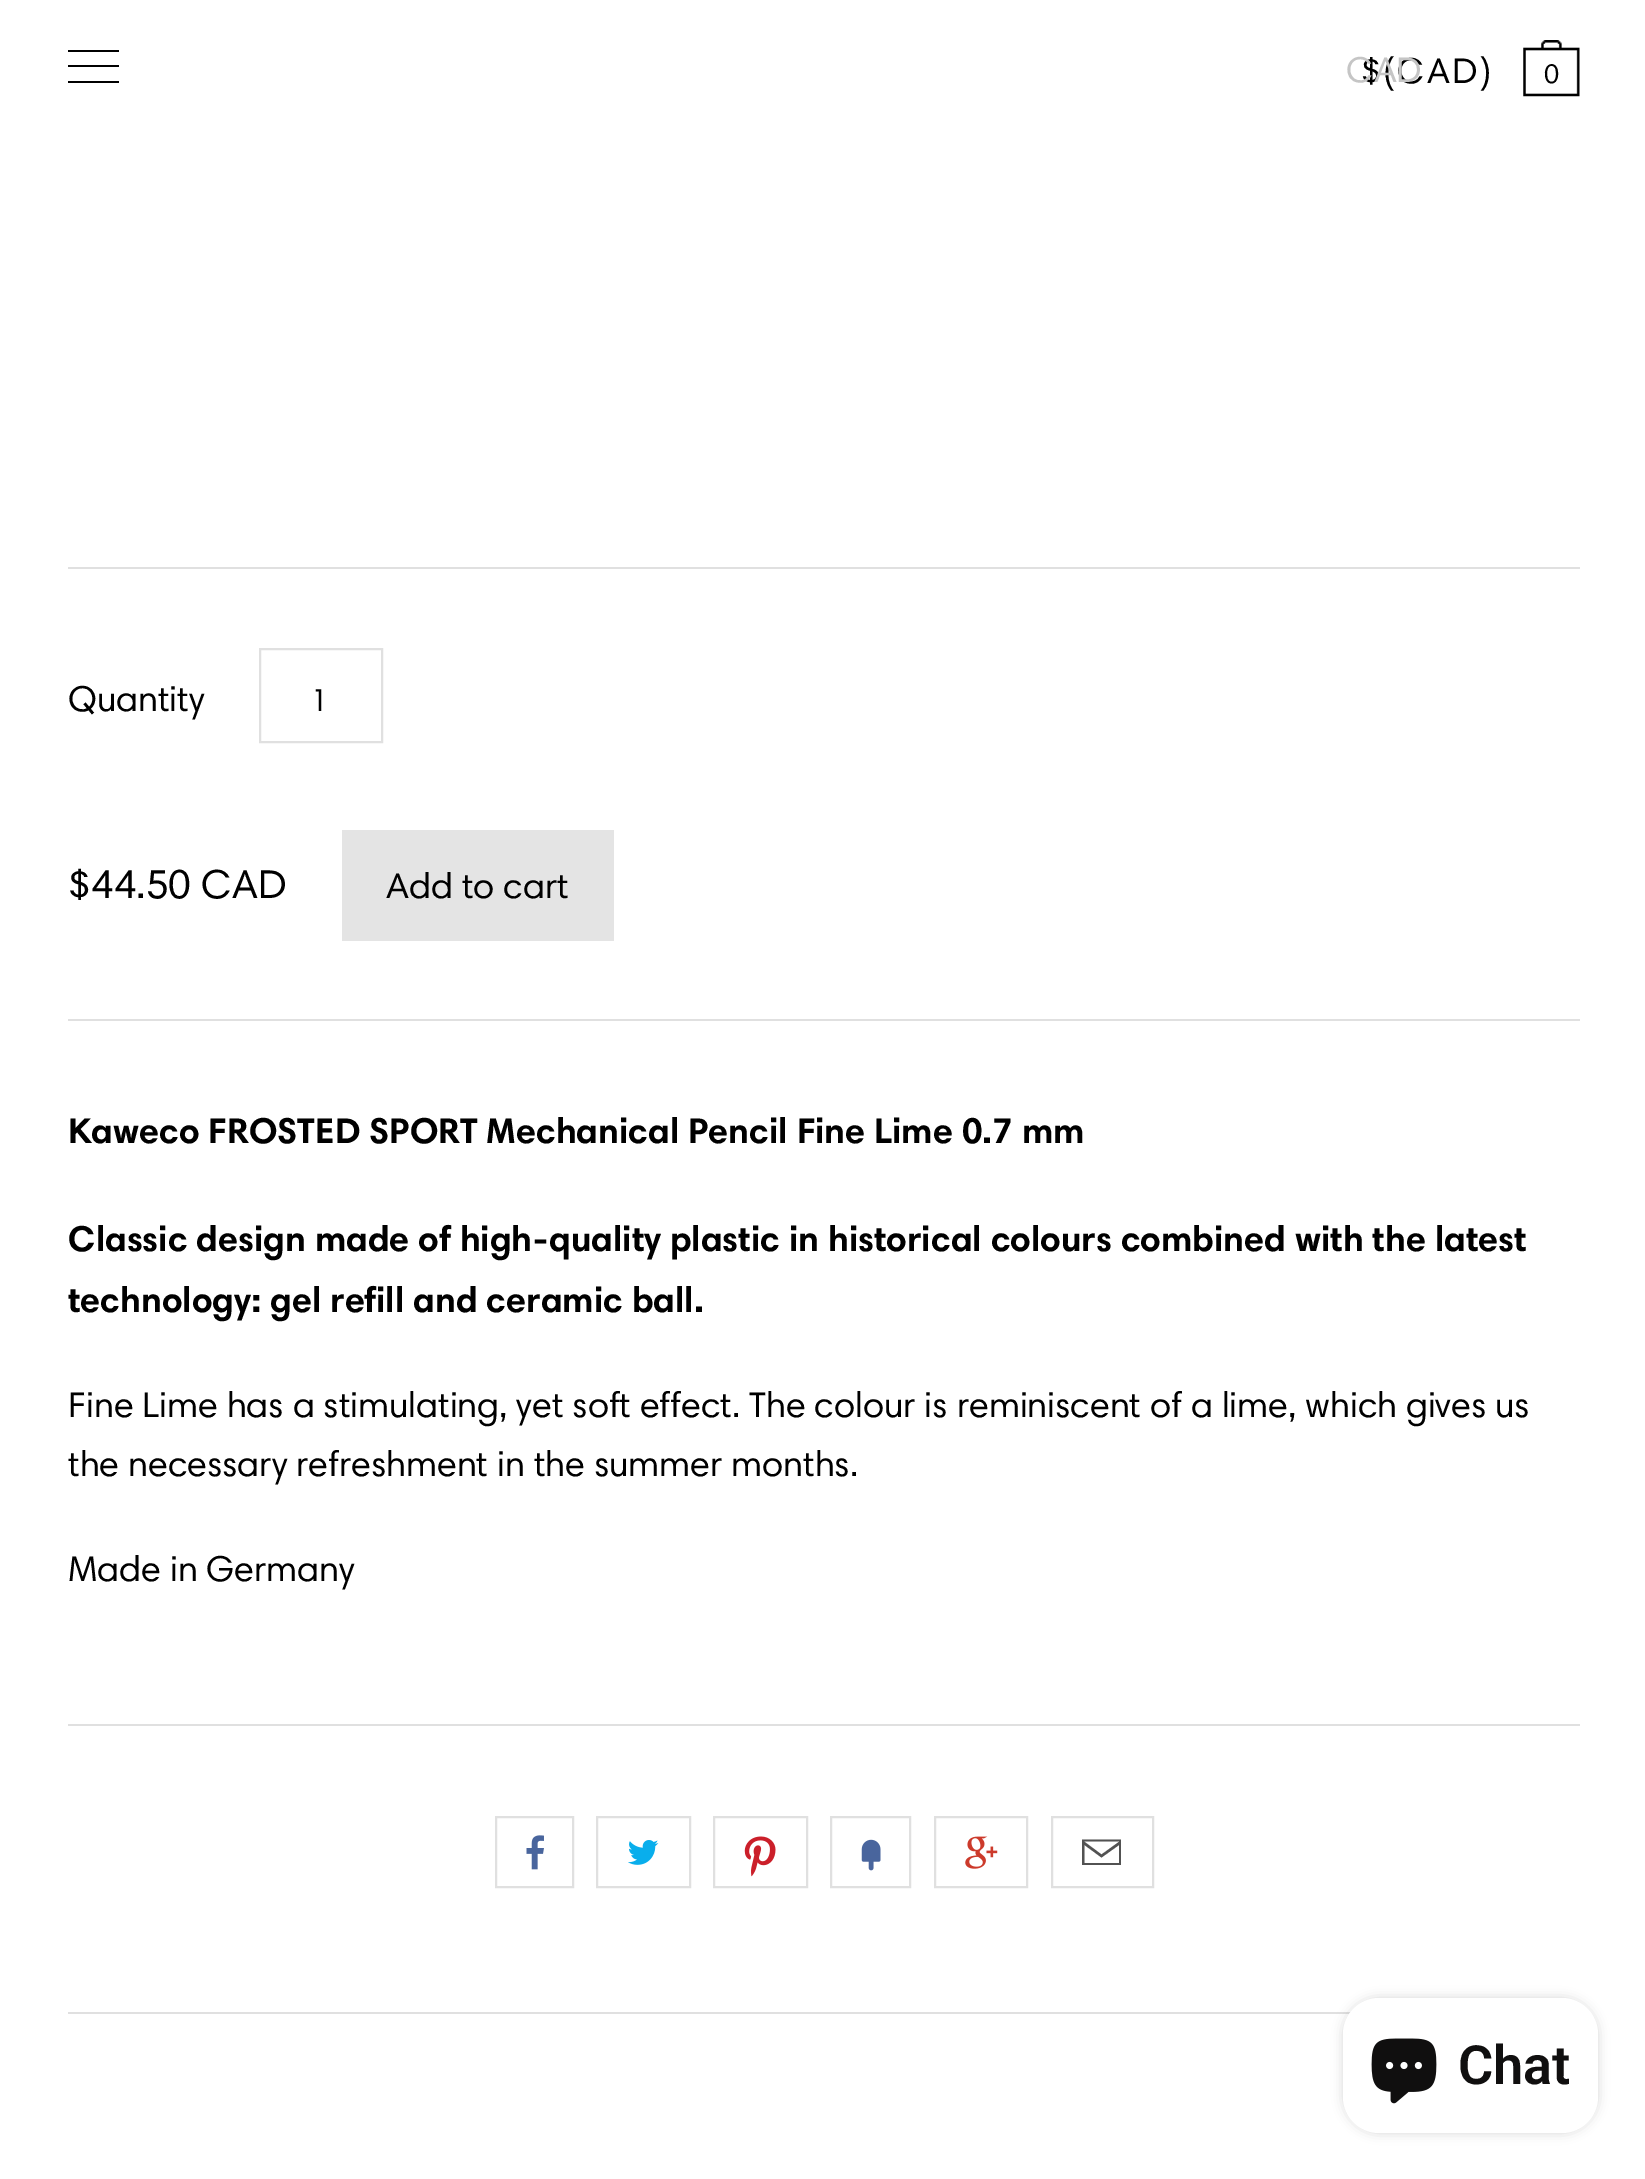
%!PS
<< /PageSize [1645 2179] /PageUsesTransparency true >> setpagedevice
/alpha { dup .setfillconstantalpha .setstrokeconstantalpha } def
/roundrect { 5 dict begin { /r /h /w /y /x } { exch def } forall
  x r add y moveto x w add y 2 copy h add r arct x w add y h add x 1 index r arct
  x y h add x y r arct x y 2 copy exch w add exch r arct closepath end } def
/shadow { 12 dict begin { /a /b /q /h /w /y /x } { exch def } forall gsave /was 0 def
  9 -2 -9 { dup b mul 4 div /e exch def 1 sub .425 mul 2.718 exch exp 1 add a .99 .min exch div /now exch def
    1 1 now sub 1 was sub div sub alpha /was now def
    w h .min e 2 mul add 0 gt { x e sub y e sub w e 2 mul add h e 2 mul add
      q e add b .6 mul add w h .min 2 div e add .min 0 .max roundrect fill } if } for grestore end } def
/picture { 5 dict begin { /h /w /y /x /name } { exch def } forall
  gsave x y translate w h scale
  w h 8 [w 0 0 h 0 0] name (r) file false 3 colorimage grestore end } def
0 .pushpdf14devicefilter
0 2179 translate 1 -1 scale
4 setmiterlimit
1 setgray
0 0 1645 2179 rectfill
0 setgray
68 50 51 2 rectfill
68 65 51 2 rectfill
68 81 51 2 rectfill
/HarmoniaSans-Regular [36 0 0 -36 0 0] selectfont
1361 83 moveto 2.25 0 ($\(CAD\)) ashow
0.773 setgray
1346 82 moveto (CAD) show
(img1.rgb) 1523 40 57 57 picture
/HarmoniaSans-Regular [27 0 0 -27 0 0] selectfont
0 setgray
1544 83 moveto (0) show
0.878 setgray
68 567 1512 2 rectfill
/HarmoniaSans-Regular [36 0 0 -36 0 0] selectfont
0 setgray
68 711 moveto (Quantity) show
0.878 setgray
2 setlinewidth
260 649 122 93 rectstroke
/HarmoniaSans-Regular [32 0 0 -32 0 0] selectfont
0 setgray
311 711 moveto (1) show
/HarmoniaSans-Regular [40.5 0 0 -40.5 0 0] selectfont
68 898 moveto ($44.50 CAD) show
0.894 setgray
342 830 272 111 rectfill
/HarmoniaSans-Regular [36 0 0 -36 0 0] selectfont
0 setgray
386 898 moveto (Add to cart) show
0.878 setgray
68 1019 1512 2 rectfill
/HarmoniaSans-Bold [36 0 0 -36 0 0] selectfont
0 setgray
68 1143 moveto (Kaweco FROSTED SPORT Mechanical Pencil Fine Lime 0.7 mm) show
68 1251 moveto (Classic design made of high-quality plastic in historical colours combined with the latest) show
68 1312 moveto (technology: gel refill and ceramic ball.) show
/HarmoniaSans-Regular [36 0 0 -36 0 0] selectfont
68 1417 moveto (Fine Lime has a stimulating, yet soft effect. The colour is reminiscent of a lime, which gives us) show
68 1476 moveto (the necessary refreshment in the summer months.) show
68 1581 moveto (Made in Germany) show
0.878 setgray
68 1724 1512 2 rectfill
496 1817 77 70 rectstroke
(img2.rgb) 526 1835 18 35 picture
597 1817 93 70 rectstroke
(img3.rgb) 628 1840 31 25 picture
714 1817 93 70 rectstroke
(img4.rgb) 744 1836 32 41 picture
831 1817 79 70 rectstroke
(img5.rgb) 861 1839 20 32 picture
935 1817 92 70 rectstroke
(img6.rgb) 965 1836 33 33 picture
1052 1817 101 70 rectstroke
0.322 setgray
newpath 1121 1839.5 moveto 1082 1839.5 lineto 1082 1865 lineto 1121 1865 lineto closepath 1119.5 1841.5 moveto 1101.5 1854.5 lineto 1084 1841.5 lineto closepath 1119 1845 moveto 1119 1863 lineto 1084.5 1863 lineto 1084.5 1845 lineto 1101.5 1857.5 lineto closepath fill
0.878 setgray
68 2012 1283 2 rectfill
0 setgray
1343 1998 255 135 36 5.5 0.15 shadow
1 setgray
1343 1998 255 135 36 roundrect fill
(img7.rgb) 1371 2038 66 66 picture
/Roboto-SemiBold [54 0 0 -54 0 0] selectfont
0.063 0.059 0.059 setrgbcolor
1458 2084 moveto (Chat) show
.poppdf14devicefilter showpage
